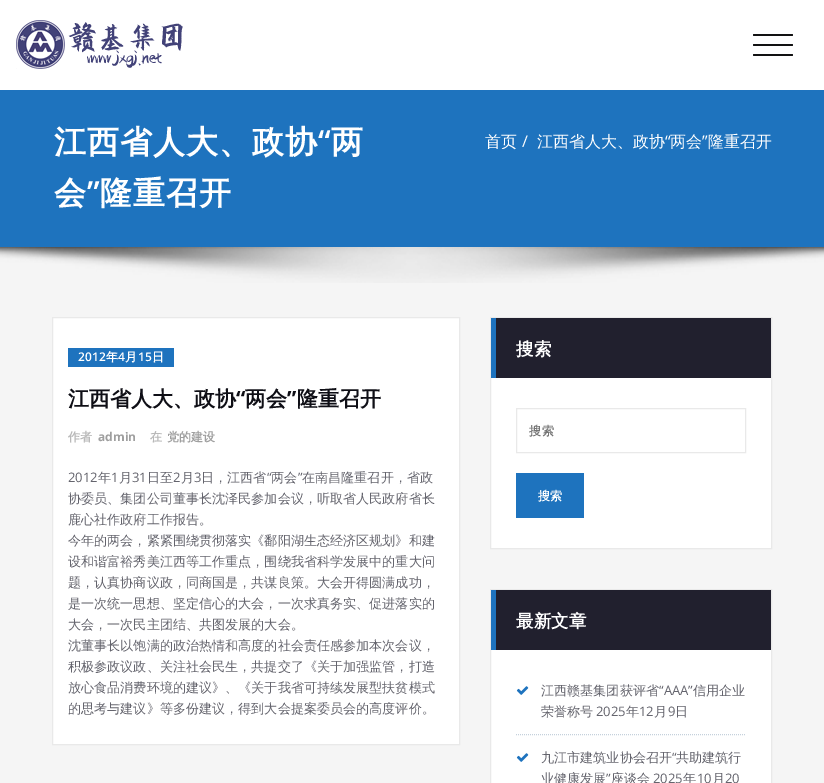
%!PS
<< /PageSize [824 783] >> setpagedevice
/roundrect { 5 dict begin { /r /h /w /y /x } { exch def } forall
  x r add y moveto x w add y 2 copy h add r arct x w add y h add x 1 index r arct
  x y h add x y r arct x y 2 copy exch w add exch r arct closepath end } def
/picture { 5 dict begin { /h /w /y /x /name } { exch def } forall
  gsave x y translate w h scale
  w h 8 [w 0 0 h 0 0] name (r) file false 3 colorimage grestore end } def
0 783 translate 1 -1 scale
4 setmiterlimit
0.961 setgray
0 0 824 783 rectfill
1 setgray
0 0 824 90 rectfill
(img1.rgb) 16 20 167 49 picture
0.071 0.071 0.075 setrgbcolor
753 34 40 2 1 roundrect fill
753 44 40 2 1 roundrect fill
753 54 40 2 1 roundrect fill
0.118 0.451 0.745 setrgbcolor
0 90 824 157 rectfill
/WenQuanYiZenHei-Bold [32 0 0 -32 0 0] selectfont
1 setgray
54 153 moveto 1 0 (江西省人大、政协) ashow
/OpenSans-SemiBold [32 0 0 -32 0 0] selectfont
318 153 moveto 1 0 (“) ashow
/WenQuanYiZenHei-Bold [32 0 0 -32 0 0] selectfont
331 153 moveto 1 0 (两) ashow
54 204 moveto 1 0 (会) ashow
/OpenSans-SemiBold [32 0 0 -32 0 0] selectfont
87 204 moveto 1 0 (”) ashow
/WenQuanYiZenHei-Bold [32 0 0 -32 0 0] selectfont
100 204 moveto 1 0 (隆重召开) ashow
/WenQuanYiZenHei-Medium [16 0 0 -16 0 0] selectfont
485 147 moveto (首页) show
/OpenSans-Regular [16 0 0 -16 0 0] selectfont
522 147 moveto (/) show
/WenQuanYiZenHei-Medium [16 0 0 -16 0 0] selectfont
537 147 moveto (江西省人大、政协) show
/OpenSans-Regular [16 0 0 -16 0 0] selectfont
665 147 moveto (“) show
/WenQuanYiZenHei-Medium [16 0 0 -16 0 0] selectfont
670 147 moveto (两会) show
/OpenSans-Regular [16 0 0 -16 0 0] selectfont
702 147 moveto (”) show
/WenQuanYiZenHei-Medium [16 0 0 -16 0 0] selectfont
708 147 moveto (隆重召开) show
(img2.rgb) 0 247 824 36 picture
newpath 52.5 317.5 moveto 459.5 317.5 lineto 459.5 744.5 lineto 52.5 744.5 lineto closepath gsave fill grestore
0.914 setgray
stroke
0.118 0.451 0.745 setrgbcolor
68 348 106 19 rectfill
/OpenSans-SemiBold [12 0 0 -12 0 0] selectfont
1 setgray
78 361 moveto (2012) show
/WenQuanYiZenHei-Bold [12 0 0 -12 0 0] selectfont
106 361 moveto (年) show
/OpenSans-SemiBold [12 0 0 -12 0 0] selectfont
118 361 moveto (4) show
/WenQuanYiZenHei-Bold [12 0 0 -12 0 0] selectfont
125 361 moveto (月) show
/OpenSans-SemiBold [12 0 0 -12 0 0] selectfont
138 361 moveto (15) show
/WenQuanYiZenHei-Bold [12 0 0 -12 0 0] selectfont
152 361 moveto (日) show
/WenQuanYiZenHei-Bold [21 0 0 -21 0 0] selectfont
0.059 0.059 0.086 setrgbcolor
68 406 moveto (江西省人大、政协) show
/OpenSans-Bold [21 0 0 -21 0 0] selectfont
236 406 moveto (“) show
/WenQuanYiZenHei-Bold [21 0 0 -21 0 0] selectfont
245 406 moveto (两会) show
/OpenSans-Bold [21 0 0 -21 0 0] selectfont
287 406 moveto (”) show
/WenQuanYiZenHei-Bold [21 0 0 -21 0 0] selectfont
297 406 moveto (隆重召开) show
/WenQuanYiZenHei-Bold [12 0 0 -12 0 0] selectfont
0.725 setgray
68 441 moveto (作者) show
/OpenSans-Bold [12 0 0 -12 0 0] selectfont
0.624 setgray
98 441 moveto (admin) show
/WenQuanYiZenHei-Bold [12 0 0 -12 0 0] selectfont
0.725 setgray
150 441 moveto (在) show
0.624 setgray
167 441 moveto (党的建设) show
/OpenSans-Regular [13.1 0 0 -13.1 0 0] selectfont
0.392 0.392 0.427 setrgbcolor
68 482 moveto (2012) show
/WenQuanYiZenHei-Medium [13.1 0 0 -13.1 0 0] selectfont
98 482 moveto (年) show
/OpenSans-Regular [13.1 0 0 -13.1 0 0] selectfont
111 482 moveto (1) show
/WenQuanYiZenHei-Medium [13.1 0 0 -13.1 0 0] selectfont
119 482 moveto (月) show
/OpenSans-Regular [13.1 0 0 -13.1 0 0] selectfont
132 482 moveto (31) show
/WenQuanYiZenHei-Medium [13.1 0 0 -13.1 0 0] selectfont
147 482 moveto (日至) show
/OpenSans-Regular [13.1 0 0 -13.1 0 0] selectfont
173 482 moveto (2) show
/WenQuanYiZenHei-Medium [13.1 0 0 -13.1 0 0] selectfont
181 482 moveto (月) show
/OpenSans-Regular [13.1 0 0 -13.1 0 0] selectfont
194 482 moveto (3) show
/WenQuanYiZenHei-Medium [13.1 0 0 -13.1 0 0] selectfont
201 482 moveto (日，江西省) show
/OpenSans-Regular [13.1 0 0 -13.1 0 0] selectfont
267 482 moveto (“) show
/WenQuanYiZenHei-Medium [13.1 0 0 -13.1 0 0] selectfont
271 482 moveto (两会) show
/OpenSans-Regular [13.1 0 0 -13.1 0 0] selectfont
298 482 moveto (”) show
/WenQuanYiZenHei-Medium [13.1 0 0 -13.1 0 0] selectfont
302 482 moveto (在南昌隆重召开，省政) show
68 503 moveto (协委员、集团公司董事长沈泽民参加会议，听取省人民政府省长) show
68 524 moveto (鹿心社作政府工作报告。) show
68 545 moveto (今年的两会，紧紧围绕贯彻落实《鄱阳湖生态经济区规划》和建) show
68 566 moveto (设和谐富裕秀美江西等工作重点，围绕我省科学发展中的重大问) show
68 587 moveto (题，认真协商议政，同商国是，共谋良策。大会开得圆满成功，) show
68 608 moveto (是一次统一思想、坚定信心的大会，一次求真务实、促进落实的) show
68 629 moveto (大会，一次民主团结、共图发展的大会。) show
68 650 moveto (沈董事长以饱满的政治热情和高度的社会责任感参加本次会议，) show
68 671 moveto (积极参政议政、关注社会民生，共提交了《关于加强监管，打造) show
68 692 moveto (放心食品消费环境的建议》、《关于我省可持续发展型扶贫模式) show
68 713 moveto (的思考与建议》等多份建议，得到大会提案委员会的高度评价。) show
1 setgray
491 378 280 170 rectfill
0.914 setgray
490.5 317.5 281 231 rectstroke
0.129 0.125 0.18 setrgbcolor
496 318 275 60 rectfill
0.118 0.451 0.745 setrgbcolor
491 318 5 60 rectfill
/WenQuanYiZenHei-Bold [17.5 0 0 -17.5 0 0] selectfont
1 setgray
516 355 moveto (搜索) show
0.914 setgray
516.5 408.5 229 44 rectstroke
gsave
529 422 200 18 rectclip
/WenQuanYiZenHei-Bold [12 0 0 -12 0 0] selectfont
0.459 setgray
529 435 moveto 1 0 (搜索) ashow
grestore
0.118 0.451 0.745 setrgbcolor
516 473 68 45 rectfill
/WenQuanYiZenHei-Bold [12 0 0 -12 0 0] selectfont
1 setgray
538 500 moveto (搜索) show
491 650 280 133 rectfill
0.914 setgray
490.5 589.5 281 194 rectstroke
0.129 0.125 0.18 setrgbcolor
496 590 275 60 rectfill
0.118 0.451 0.745 setrgbcolor
491 590 5 60 rectfill
/WenQuanYiZenHei-Bold [17.5 0 0 -17.5 0 0] selectfont
1 setgray
516 627 moveto (最新文章) show
0.773 0.82 0.863 setrgbcolor
[1 1] 0 setdash
newpath 516 734.5 moveto 746 734.5 lineto stroke
(img3.rgb) 516 686 13 9 picture
/WenQuanYiZenHei-Medium [13.1 0 0 -13.1 0 0] selectfont
0.392 0.392 0.427 setrgbcolor
541 695 moveto (江西赣基集团获评省) show
/OpenSans-Regular [13.1 0 0 -13.1 0 0] selectfont
659 695 moveto (“AAA”) show
/WenQuanYiZenHei-Medium [13.1 0 0 -13.1 0 0] selectfont
693 695 moveto (信用企业) show
541 716 moveto (荣誉称号) show
/OpenSans-Regular [13.1 0 0 -13.1 0 0] selectfont
596 716 moveto (2025) show
/WenQuanYiZenHei-Medium [13.1 0 0 -13.1 0 0] selectfont
626 716 moveto (年) show
/OpenSans-Regular [13.1 0 0 -13.1 0 0] selectfont
639 716 moveto (12) show
/WenQuanYiZenHei-Medium [13.1 0 0 -13.1 0 0] selectfont
654 716 moveto (月) show
/OpenSans-Regular [13.1 0 0 -13.1 0 0] selectfont
668 716 moveto (9) show
/WenQuanYiZenHei-Medium [13.1 0 0 -13.1 0 0] selectfont
675 716 moveto (日) show
(img3.rgb) 516 753 13 9 picture
541 762 moveto (九江市建筑业协会召开) show
/OpenSans-Regular [13.1 0 0 -13.1 0 0] selectfont
672 762 moveto (“) show
/WenQuanYiZenHei-Medium [13.1 0 0 -13.1 0 0] selectfont
676 762 moveto (共助建筑行) show
541 783 moveto (业健康发展) show
/OpenSans-Regular [13.1 0 0 -13.1 0 0] selectfont
606 783 moveto (”) show
/WenQuanYiZenHei-Medium [13.1 0 0 -13.1 0 0] selectfont
611 783 moveto (座谈会) show
/OpenSans-Regular [13.1 0 0 -13.1 0 0] selectfont
653 783 moveto (2025) show
/WenQuanYiZenHei-Medium [13.1 0 0 -13.1 0 0] selectfont
683 783 moveto (年) show
/OpenSans-Regular [13.1 0 0 -13.1 0 0] selectfont
697 783 moveto (10) show
/WenQuanYiZenHei-Medium [13.1 0 0 -13.1 0 0] selectfont
712 783 moveto (月) show
/OpenSans-Regular [13.1 0 0 -13.1 0 0] selectfont
725 783 moveto (20) show
showpage
